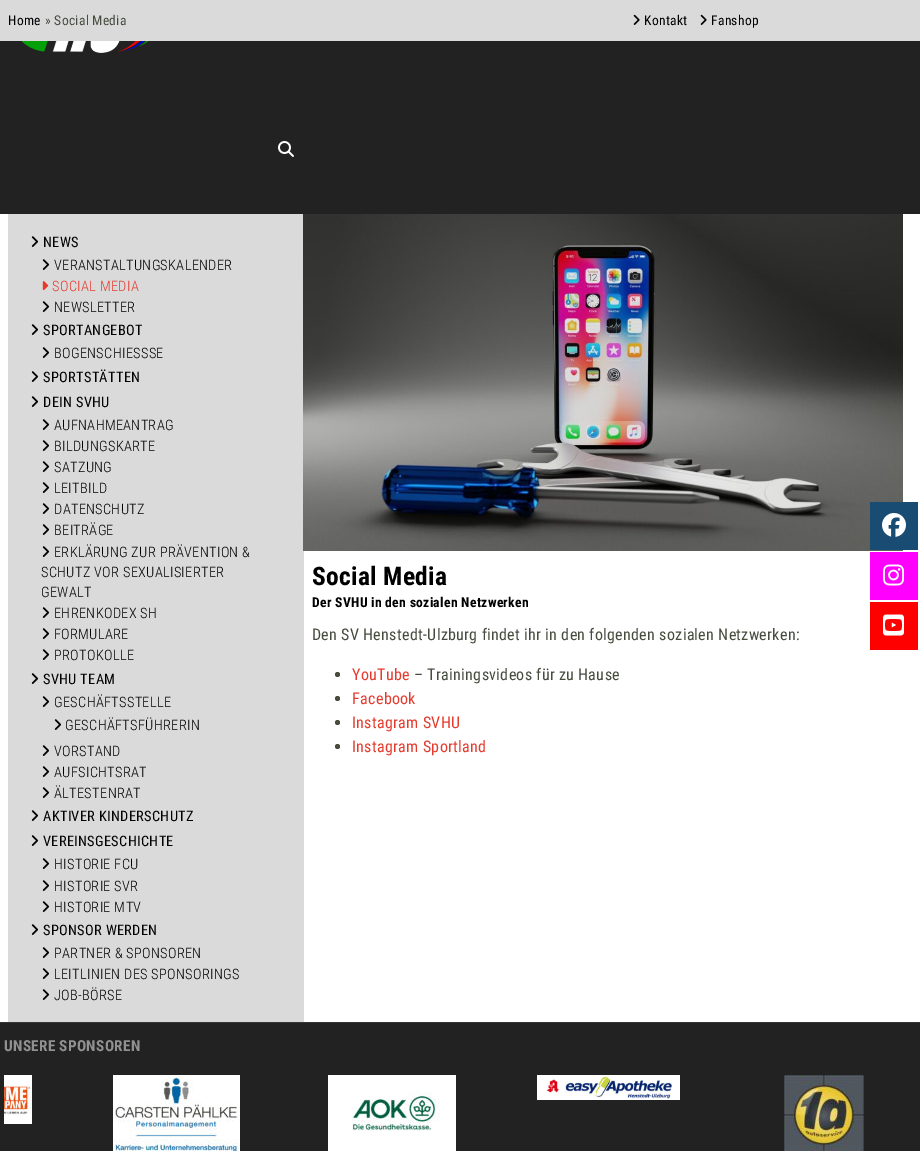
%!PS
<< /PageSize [920 1151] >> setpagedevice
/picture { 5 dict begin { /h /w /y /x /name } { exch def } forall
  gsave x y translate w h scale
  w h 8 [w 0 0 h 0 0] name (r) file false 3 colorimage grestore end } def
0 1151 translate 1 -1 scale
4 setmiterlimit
0.133 setgray
0 0 920 1151 rectfill
0.855 setgray
0 0 920 41 rectfill
/RobotoCondensed-Regular [13.5 0 0 -13.5 0 0] selectfont
0 setgray
8 25 moveto 0.32 0 (Home) ashow
0.275 0.298 0.243 setrgbcolor
45 25 moveto 0.32 0 (» Social Media) ashow
(img1.rgb) 633 14 7 11 picture
0 setgray
644 25 moveto 0.32 0 (Kontakt) ashow
(img1.rgb) 700 14 7 11 picture
711 25 moveto 0.32 0 (Fanshop) ashow
(img2.rgb) 21 41 128 12 picture
(img3.rgb) 278 141 16 16 picture
1 setgray
0 214 920 808 rectfill
0.855 setgray
8 214 296 808 rectfill
(img4.rgb) 31 236 8 11 picture
/RobotoCondensed-Regular [14.4 0 0 -14.4 0 0] selectfont
0 setgray
43 247 moveto 0.32 0 (NEWS) ashow
(img4.rgb) 42 259 8 11 picture
/RobotoCondensed-Light [14.4 0 0 -14.4 0 0] selectfont
54 270 moveto 0.32 0 (VERANSTALTUNGSKALENDER) ashow
(img5.rgb) 42 281 7 10 picture
0.898 0.231 0.18 setrgbcolor
52 291 moveto 0.32 0 (SOCIAL MEDIA) ashow
(img4.rgb) 42 301 8 11 picture
0 setgray
54 312 moveto 0.32 0 (NEWSLETTER) ashow
(img4.rgb) 31 324 8 11 picture
/RobotoCondensed-Regular [14.4 0 0 -14.4 0 0] selectfont
43 335 moveto 0.32 0 (SPORTANGEBOT) ashow
(img4.rgb) 42 347 8 11 picture
/RobotoCondensed-Light [14.4 0 0 -14.4 0 0] selectfont
54 358 moveto 0.32 0 (BOGENSCHIESSSE) ashow
(img4.rgb) 31 371 8 11 picture
/RobotoCondensed-Regular [14.4 0 0 -14.4 0 0] selectfont
43 382 moveto 0.32 0 (SPORTSTÄTTEN) ashow
(img4.rgb) 31 396 8 11 picture
43 407 moveto 0.32 0 (DEIN SVHU) ashow
(img4.rgb) 42 419 8 11 picture
/RobotoCondensed-Light [14.4 0 0 -14.4 0 0] selectfont
54 430 moveto 0.32 0 (AUFNAHMEANTRAG) ashow
(img4.rgb) 42 440 8 11 picture
54 451 moveto 0.32 0 (BILDUNGSKARTE) ashow
(img4.rgb) 42 461 8 11 picture
54 472 moveto 0.32 0 (SATZUNG) ashow
(img4.rgb) 42 482 8 11 picture
54 493 moveto 0.32 0 (LEITBILD) ashow
(img4.rgb) 42 503 8 11 picture
54 514 moveto 0.32 0 (DATENSCHUTZ) ashow
(img4.rgb) 42 524 8 11 picture
54 535 moveto 0.32 0 (BEITRÄGE) ashow
(img4.rgb) 42 546 8 11 picture
54 557 moveto 0.32 0 (ERKLÄRUNG ZUR PRÄVENTION &) ashow
41 577 moveto 0.32 0 (SCHUTZ VOR SEXUALISIERTER) ashow
41 597 moveto 0.32 0 (GEWALT) ashow
(img4.rgb) 42 607 8 11 picture
54 618 moveto 0.32 0 (EHRENKODEX SH) ashow
(img4.rgb) 42 628 8 11 picture
54 639 moveto 0.32 0 (FORMULARE) ashow
(img4.rgb) 42 649 8 11 picture
54 660 moveto 0.32 0 (PROTOKOLLE) ashow
(img4.rgb) 31 673 8 11 picture
/RobotoCondensed-Regular [14.4 0 0 -14.4 0 0] selectfont
43 684 moveto 0.32 0 (SVHU TEAM) ashow
(img4.rgb) 42 696 8 11 picture
/RobotoCondensed-Light [14.4 0 0 -14.4 0 0] selectfont
54 707 moveto 0.32 0 (GESCHÄFTSSTELLE) ashow
(img4.rgb) 54 719 8 11 picture
65 730 moveto 0.32 0 (GESCHÄFTSFÜHRERIN) ashow
(img4.rgb) 42 745 8 11 picture
54 756 moveto 0.32 0 (VORSTAND) ashow
(img4.rgb) 42 766 8 11 picture
54 777 moveto 0.32 0 (AUFSICHTSRAT) ashow
(img4.rgb) 42 787 8 11 picture
54 798 moveto 0.32 0 (ÄLTESTENRAT) ashow
(img4.rgb) 31 810 8 11 picture
/RobotoCondensed-Regular [14.4 0 0 -14.4 0 0] selectfont
43 821 moveto 0.32 0 (AKTIVER KINDERSCHUTZ) ashow
(img4.rgb) 31 835 8 11 picture
43 846 moveto 0.32 0 (VEREINSGESCHICHTE) ashow
(img4.rgb) 42 858 8 11 picture
/RobotoCondensed-Light [14.4 0 0 -14.4 0 0] selectfont
54 869 moveto 0.32 0 (HISTORIE FCU) ashow
(img4.rgb) 42 880 8 11 picture
54 891 moveto 0.32 0 (HISTORIE SVR) ashow
(img4.rgb) 42 901 8 11 picture
54 912 moveto 0.32 0 (HISTORIE MTV) ashow
(img4.rgb) 31 924 8 11 picture
/RobotoCondensed-Regular [14.4 0 0 -14.4 0 0] selectfont
43 935 moveto 0.32 0 (SPONSOR WERDEN) ashow
(img4.rgb) 42 947 8 11 picture
/RobotoCondensed-Light [14.4 0 0 -14.4 0 0] selectfont
54 958 moveto 0.32 0 (PARTNER & SPONSOREN) ashow
(img4.rgb) 42 968 8 11 picture
54 979 moveto 0.32 0 (LEITLINIEN DES SPONSORINGS) ashow
(img4.rgb) 42 989 8 11 picture
54 1000 moveto 0.32 0 (JOB-BÖRSE) ashow
(img6.rgb) 303 214 600 337 picture
/RobotoCondensed-Bold [25.5 0 0 -25.5 0 0] selectfont
312 585 moveto 0.32 0 (Social Media) ashow
/RobotoCondensed-Bold [13.6 0 0 -13.6 0 0] selectfont
312 607 moveto 0.32 0 (Der SVHU in den sozialen Netzwerken) ashow
/RobotoCondensed-Regular [16 0 0 -16 0 0] selectfont
0.275 0.298 0.243 setrgbcolor
312 640 moveto 0.32 0 (Den SV Henstedt-Ulzburg findet ihr in den folgenden sozialen Netzwerken:) ashow
newpath 337.5 674.5 2.5 0 360 arc closepath fill
0.898 0.231 0.18 setrgbcolor
352 680 moveto 0.32 0 (YouTube) ashow
0.275 0.298 0.243 setrgbcolor
414 680 moveto 0.32 0 (– Trainingsvideos für zu Hause) ashow
newpath 337.5 698.5 2.5 0 360 arc closepath fill
0.898 0.231 0.18 setrgbcolor
352 704 moveto 0.32 0 (Facebook) ashow
0.275 0.298 0.243 setrgbcolor
newpath 337.5 722.5 2.5 0 360 arc closepath fill
0.898 0.231 0.18 setrgbcolor
352 728 moveto 0.32 0 (Instagram SVHU) ashow
0.275 0.298 0.243 setrgbcolor
newpath 337.5 746.5 2.5 0 360 arc closepath fill
0.898 0.231 0.18 setrgbcolor
352 752 moveto 0.32 0 (Instagram Sportland) ashow
0.212 setgray
0 1022 920 1 rectfill
/RobotoCondensed-Bold [15.25 0 0 -15.25 0 0] selectfont
0.569 setgray
4 1051 moveto 0.32 0 (UNSERE SPONSOREN) ashow
(img7.rgb) 4 1075 28 49 picture
(img8.rgb) 113 1075 127 76 picture
(img9.rgb) 328 1075 128 76 picture
(img10.rgb) 537 1075 143 25 picture
(img11.rgb) 784 1075 80 76 picture
0.094 0.298 0.447 setrgbcolor
870 502 48 48 rectfill
(img12.rgb) 882 513 24 24 picture
1 0 1 setrgbcolor
870 552 48 48 rectfill
(img13.rgb) 883 564 21 22 picture
1 0 0 setrgbcolor
870 602 48 48 rectfill
(img14.rgb) 883 614 21 22 picture
showpage
